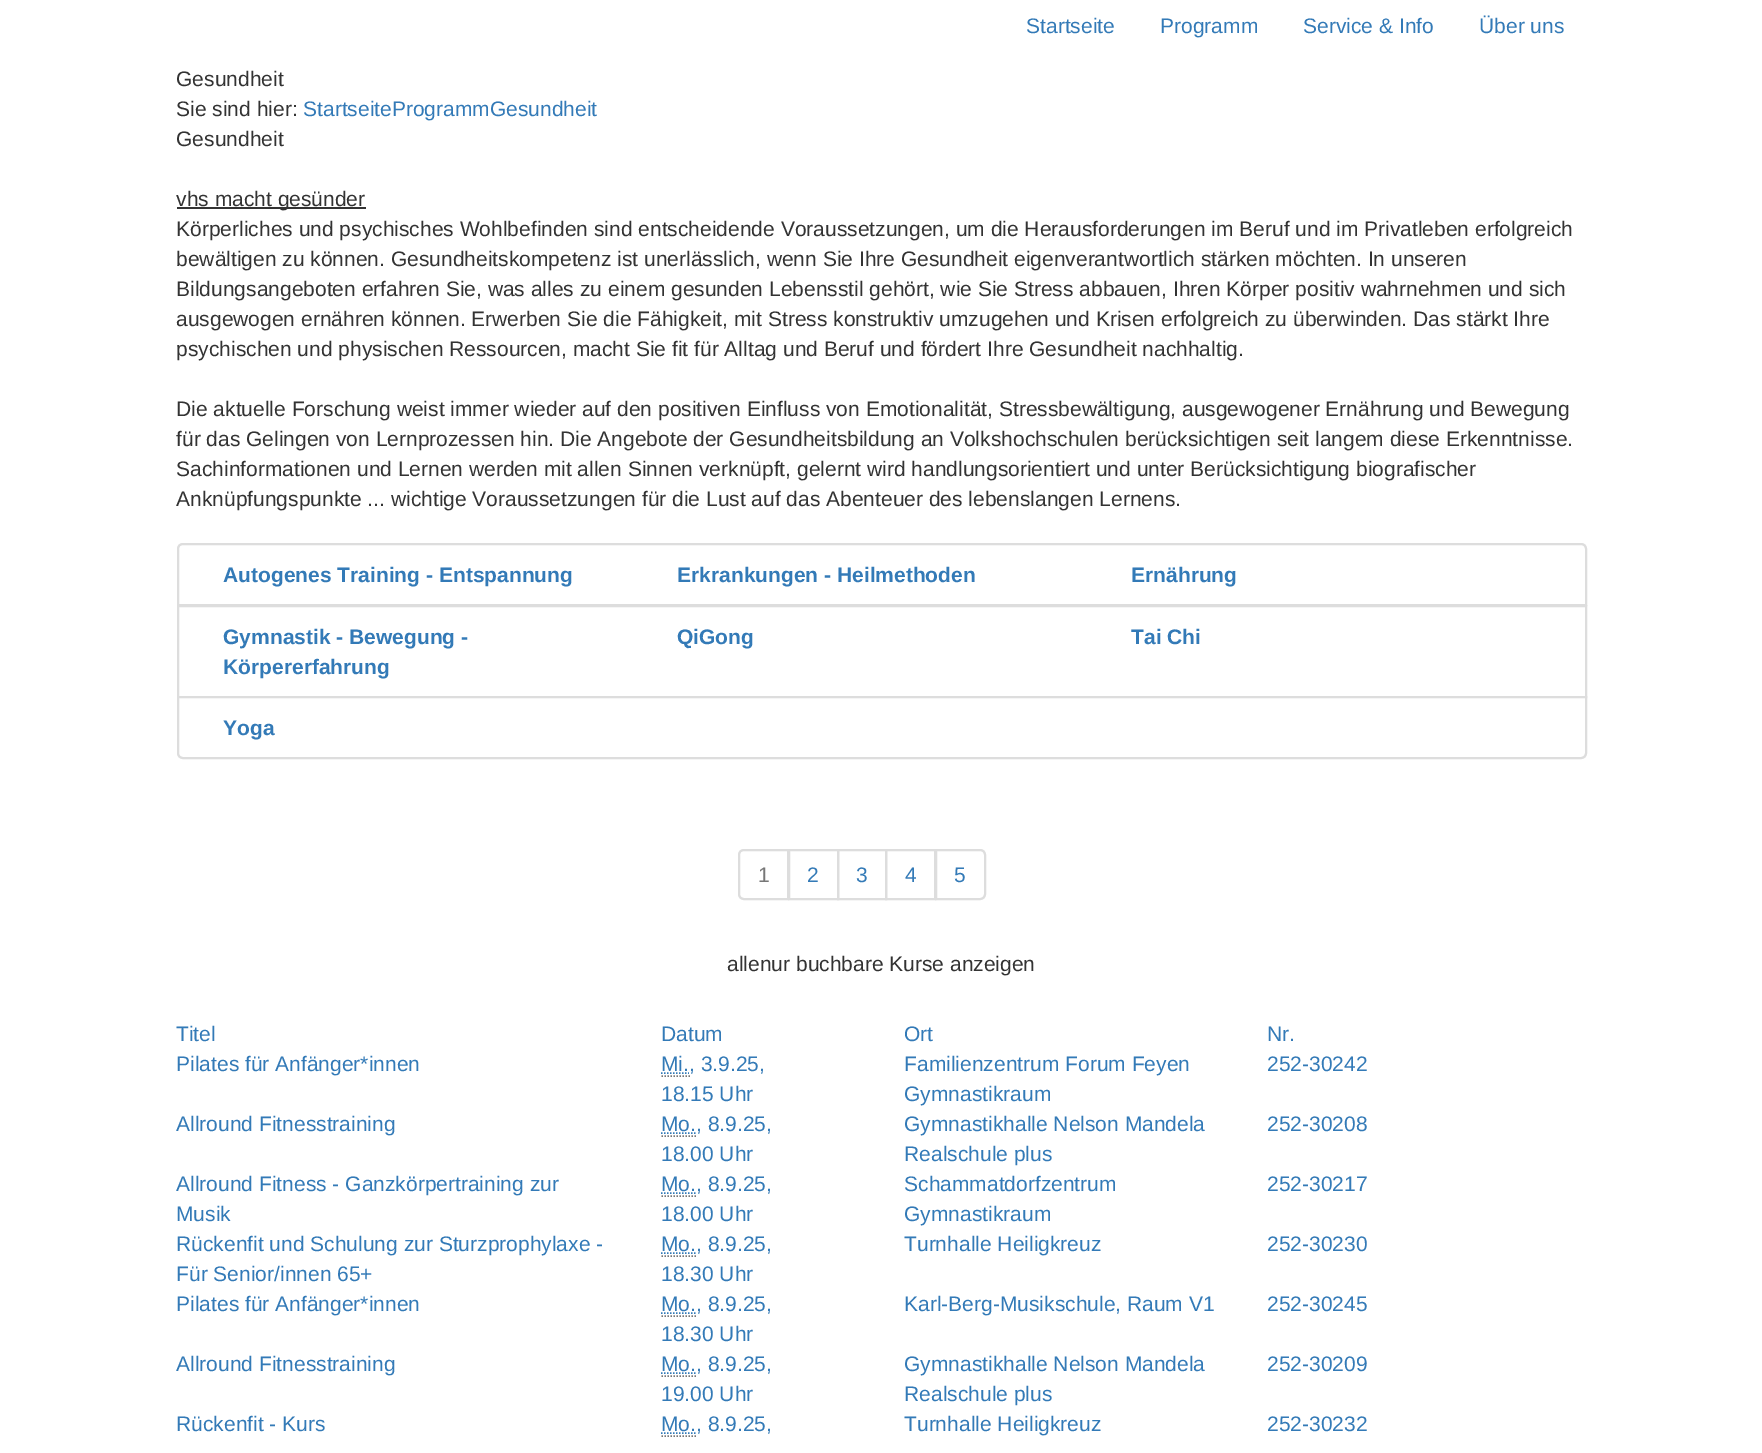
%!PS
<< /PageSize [1762 1453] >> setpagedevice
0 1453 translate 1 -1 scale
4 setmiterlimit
1 setgray
0 0 1762 1453 rectfill
/LiberationSans-Regular [21 0 0 -21 0 0] selectfont
0.2 0.478 0.718 setrgbcolor
1026 33 moveto (Startseite) show
1160 33 moveto (Programm) show
1303 33 moveto (Service & Info) show
1479 33 moveto (Über uns) show
0.2 setgray
176 86 moveto (Gesundheit) show
176 116 moveto (Sie sind hier:) show
0.2 0.478 0.718 setrgbcolor
303 116 moveto (StartseiteProgrammGesundheit) show
0.2 setgray
176 146 moveto (Gesundheit) show
177 207 189 2 rectfill
176 206 moveto (vhs macht gesünder) show
176 236 moveto (Körperliches und psychisches Wohlbefinden sind entscheidende Voraussetzungen, um die Herausforderungen im Beruf und im Privatleben erfolgreich) show
176 266 moveto (bewältigen zu können. Gesundheitskompetenz ist unerlässlich, wenn Sie Ihre Gesundheit eigenverantwortlich stärken möchten. In unseren) show
176 296 moveto (Bildungsangeboten erfahren Sie, was alles zu einem gesunden Lebensstil gehört, wie Sie Stress abbauen, Ihren Körper positiv wahrnehmen und sich) show
176 326 moveto (ausgewogen ernähren können. Erwerben Sie die Fähigkeit, mit Stress konstruktiv umzugehen und Krisen erfolgreich zu überwinden. Das stärkt Ihre) show
176 356 moveto (psychischen und physischen Ressourcen, macht Sie fit für Alltag und Beruf und fördert Ihre Gesundheit nachhaltig.) show
176 416 moveto (Die aktuelle Forschung weist immer wieder auf den positiven Einfluss von Emotionalität, Stressbewältigung, ausgewogener Ernährung und Bewegung) show
176 446 moveto (für das Gelingen von Lernprozessen hin. Die Angebote der Gesundheitsbildung an Volkshochschulen berücksichtigen seit langem diese Erkenntnisse.) show
176 476 moveto (Sachinformationen und Lernen werden mit allen Sinnen verknüpft, gelernt wird handlungsorientiert und unter Berücksichtigung biografischer) show
176 506 moveto (Anknüpfungspunkte ... wichtige Voraussetzungen für die Lust auf das Abenteuer des lebenslangen Lernens.) show
0.867 setgray
2 setlinewidth
newpath 183 544 moveto 1581 544 lineto 1584 544 1586 546 1586 549 curveto 1586 605 lineto 178 605 lineto 178 549 lineto 178 546 180 544 183 544 curveto closepath stroke
/LiberationSans-Bold [21 0 0 -21 0 0] selectfont
0.2 0.478 0.718 setrgbcolor
223 582 moveto (Autogenes Training - Entspannung) show
677 582 moveto (Erkrankungen - Heilmethoden) show
1131 582 moveto (Ernährung) show
0.867 setgray
178 606 1408 91 rectstroke
0.2 0.478 0.718 setrgbcolor
223 644 moveto (Gymnastik - Bewegung -) show
223 674 moveto (Körpererfahrung) show
677 644 moveto (QiGong) show
1131 644 moveto (Tai Chi) show
1 setgray
newpath 178 697 moveto 1586 697 lineto 1586 753 lineto 1586 756 1584 758 1581 758 curveto 183 758 lineto 180 758 178 756 178 753 curveto closepath gsave fill grestore
0.867 setgray
stroke
0.2 0.478 0.718 setrgbcolor
223 735 moveto (Yoga) show
0.867 setgray
789 850 49 49 rectstroke
1 setgray
newpath 744 850 moveto 788 850 lineto 788 899 lineto 744 899 lineto 741 899 739 897 739 894 curveto 739 855 lineto 739 852 741 850 744 850 curveto closepath gsave fill grestore
0.867 setgray
stroke
/LiberationSans-Regular [21 0 0 -21 0 0] selectfont
0.467 setgray
758 882 moveto (1) show
0.2 0.478 0.718 setrgbcolor
807 882 moveto (2) show
0.867 setgray
838 850 48 49 rectstroke
0.2 0.478 0.718 setrgbcolor
856 882 moveto (3) show
0.867 setgray
886 850 49 49 rectstroke
0.2 0.478 0.718 setrgbcolor
905 882 moveto (4) show
1 setgray
newpath 936 850 moveto 980 850 lineto 983 850 985 852 985 855 curveto 985 894 lineto 985 897 983 899 980 899 curveto 936 899 lineto closepath gsave fill grestore
0.867 setgray
stroke
0.2 0.478 0.718 setrgbcolor
954 882 moveto (5) show
0.2 setgray
727 971 moveto (allenur buchbare Kurse anzeigen) show
0.2 0.478 0.718 setrgbcolor
176 1041 moveto (Titel) show
661 1041 moveto (Datum) show
904 1041 moveto (Ort) show
1267 1041 moveto (Nr.) show
176 1071 moveto (Pilates für Anfänger*innen) show
1.5 setlinewidth
[1.5 1.5] 0 setdash
newpath 661 1073 moveto 689 1073 lineto stroke
661 1071 moveto (Mi., 3.9.25,) show
0.467 setgray
newpath 661.5 1076 moveto 690 1076 lineto stroke
0.2 0.478 0.718 setrgbcolor
661 1101 moveto (18.15 Uhr) show
904 1071 moveto (Familienzentrum Forum Feyen) show
904 1101 moveto (Gymnastikraum) show
1267 1071 moveto (252-30242) show
176 1131 moveto (Allround Fitnesstraining) show
newpath 661 1133 moveto 696.5 1133 lineto stroke
661 1131 moveto (Mo., 8.9.25,) show
0.467 setgray
newpath 661.5 1136 moveto 696 1136 lineto stroke
0.2 0.478 0.718 setrgbcolor
661 1161 moveto (18.00 Uhr) show
904 1131 moveto (Gymnastikhalle Nelson Mandela) show
904 1161 moveto (Realschule plus) show
1267 1131 moveto (252-30208) show
176 1191 moveto (Allround Fitness - Ganzkörpertraining zur) show
176 1221 moveto (Musik) show
newpath 661 1193 moveto 696.5 1193 lineto stroke
661 1191 moveto (Mo., 8.9.25,) show
0.467 setgray
newpath 661.5 1196 moveto 696 1196 lineto stroke
0.2 0.478 0.718 setrgbcolor
661 1221 moveto (18.00 Uhr) show
904 1191 moveto (Schammatdorfzentrum) show
904 1221 moveto (Gymnastikraum) show
1267 1191 moveto (252-30217) show
176 1251 moveto (Rückenfit und Schulung zur Sturzprophylaxe -) show
176 1281 moveto (Für Senior/innen 65+) show
newpath 661 1253 moveto 696.5 1253 lineto stroke
661 1251 moveto (Mo., 8.9.25,) show
0.467 setgray
newpath 661.5 1256 moveto 696 1256 lineto stroke
0.2 0.478 0.718 setrgbcolor
661 1281 moveto (18.30 Uhr) show
904 1251 moveto (Turnhalle Heiligkreuz) show
1267 1251 moveto (252-30230) show
176 1311 moveto (Pilates für Anfänger*innen) show
newpath 661 1313 moveto 696.5 1313 lineto stroke
661 1311 moveto (Mo., 8.9.25,) show
0.467 setgray
newpath 661.5 1316 moveto 696 1316 lineto stroke
0.2 0.478 0.718 setrgbcolor
661 1341 moveto (18.30 Uhr) show
904 1311 moveto (Karl-Berg-Musikschule, Raum V1) show
1267 1311 moveto (252-30245) show
176 1371 moveto (Allround Fitnesstraining) show
newpath 661 1373 moveto 696.5 1373 lineto stroke
661 1371 moveto (Mo., 8.9.25,) show
0.467 setgray
newpath 661.5 1376 moveto 696 1376 lineto stroke
0.2 0.478 0.718 setrgbcolor
661 1401 moveto (19.00 Uhr) show
904 1371 moveto (Gymnastikhalle Nelson Mandela) show
904 1401 moveto (Realschule plus) show
1267 1371 moveto (252-30209) show
176 1431 moveto (Rückenfit - Kurs) show
newpath 661 1433 moveto 696.5 1433 lineto stroke
661 1431 moveto (Mo., 8.9.25,) show
0.467 setgray
newpath 661.5 1436 moveto 696 1436 lineto stroke
0.2 0.478 0.718 setrgbcolor
904 1431 moveto (Turnhalle Heiligkreuz) show
1267 1431 moveto (252-30232) show
showpage
